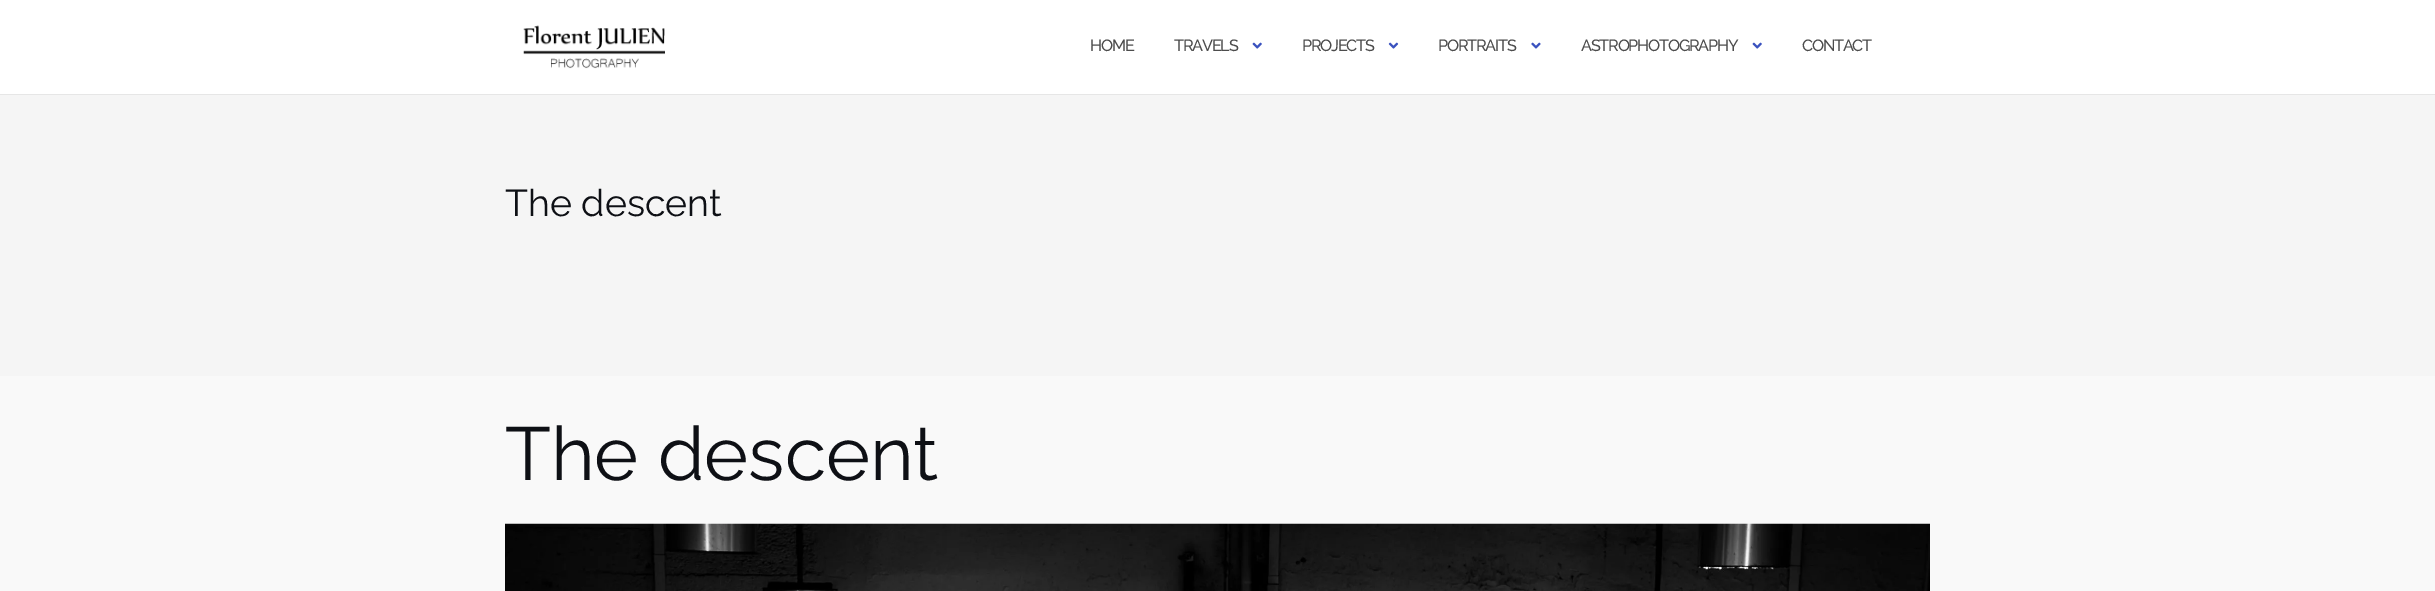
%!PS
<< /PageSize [2435 591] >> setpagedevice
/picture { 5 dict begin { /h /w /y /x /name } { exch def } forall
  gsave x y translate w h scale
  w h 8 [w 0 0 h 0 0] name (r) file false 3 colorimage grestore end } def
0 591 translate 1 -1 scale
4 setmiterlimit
0.976 setgray
0 0 2435 591 rectfill
1 setgray
0 0 2435 94 rectfill
0.902 setgray
0 94 2435 1 rectfill
(img1.rgb) 523 25 142 44 picture
/Raleway-Medium [16.25 0 0 -16.25 0 0] selectfont
0.298 setgray
1090 51 moveto -1.25 0 (HOME) ashow
1174 51 moveto -1.25 0 (TRAVELS) ashow
(img2.rgb) 1252 42 10 7 picture
1302 51 moveto -1.25 0 (PROJECTS) ashow
(img3.rgb) 1388 42 11 7 picture
1438 51 moveto -1.25 0 (PORTRAITS) ashow
(img4.rgb) 1531 42 10 7 picture
1581 51 moveto -1.25 0 (ASTROPHOTOGRAPHY) ashow
(img2.rgb) 1752 42 10 7 picture
1802 51 moveto -1.25 0 (CONTACT) ashow
0.961 setgray
0 95 2435 281 rectfill
/Raleway-Regular [37.5 0 0 -37.5 0 0] selectfont
0.055 0.063 0.082 setrgbcolor
505 216 moveto (The descent) show
/Raleway-Regular [75 0 0 -75 0 0] selectfont
505 480 moveto (The descent) show
(img5.rgb) 505 523 1425 68 picture
showpage
